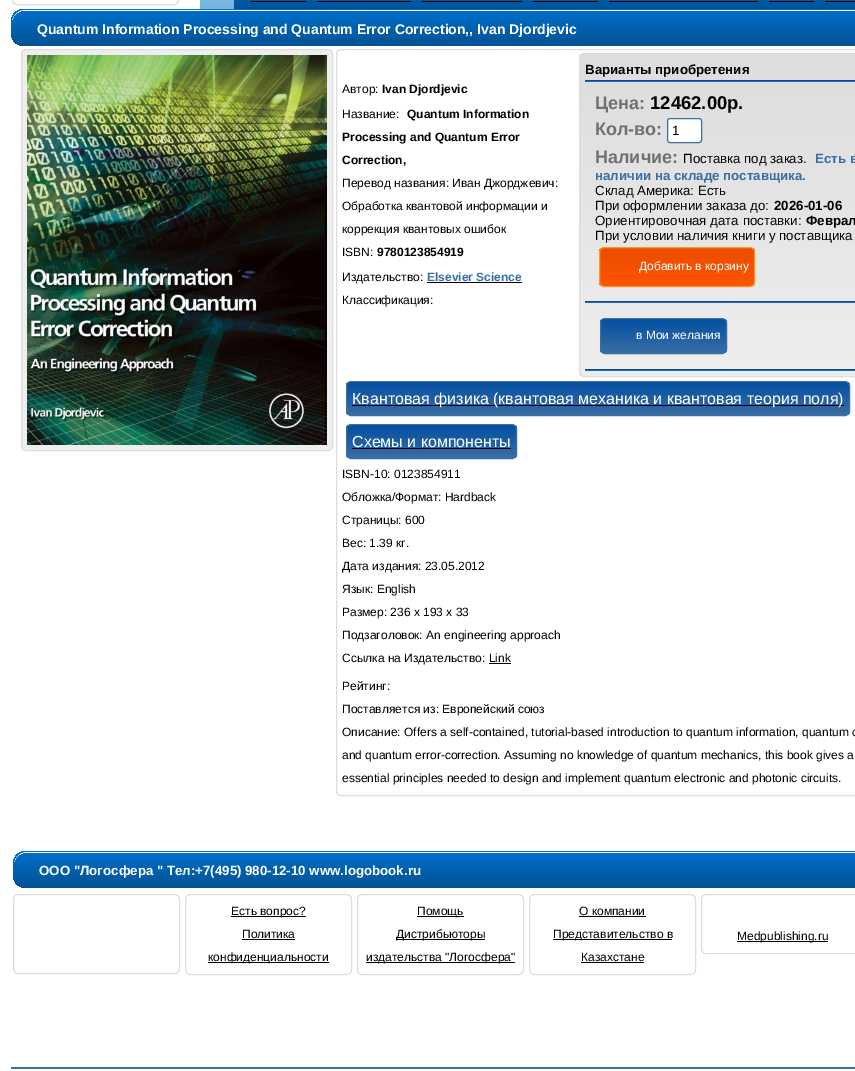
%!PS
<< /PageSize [855 1071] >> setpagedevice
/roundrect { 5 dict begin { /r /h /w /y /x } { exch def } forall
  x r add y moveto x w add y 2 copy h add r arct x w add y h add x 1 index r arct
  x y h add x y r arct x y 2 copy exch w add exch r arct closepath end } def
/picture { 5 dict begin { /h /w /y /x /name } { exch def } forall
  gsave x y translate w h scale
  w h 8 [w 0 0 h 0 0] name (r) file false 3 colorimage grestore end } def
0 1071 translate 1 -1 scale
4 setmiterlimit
1 setgray
0 0 855 1071 rectfill
0.867 setgray
12.5 -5.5 166 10 4.5 roundrect stroke
gsave newpath 200 0 moveto 201 0 lineto 201 9 lineto 200 9 lineto closepath clip newpath
<< /ShadingType 2 /ColorSpace /DeviceRGB /Coords [659 9 659 -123] /Extend [true true] /Function << /FunctionType 2 /Domain [0 1] /C0 [0.455 0.706 0.882] /C1 [0.659 0.851 0.961] /N 1 >> >> shfill grestore
gsave newpath 201 0 moveto 234 0 lineto 234 9 lineto 201 9 lineto closepath clip newpath
<< /ShadingType 2 /ColorSpace /DeviceRGB /Coords [659 9 659 -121] /Extend [true true] /Function << /FunctionType 2 /Domain [0 1] /C0 [0.455 0.706 0.882] /C1 [0.659 0.851 0.961] /N 1 >> >> shfill grestore
gsave newpath 234 0 moveto 235 0 lineto 235 9 lineto 234 9 lineto closepath clip newpath
<< /ShadingType 2 /ColorSpace /DeviceRGB /Coords [579 9 579 -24] /Extend [true true] /Function << /FunctionType 2 /Domain [0 1] /C0 [0.012 0.322 0.576] /C1 [0 0.435 0.792] /N 1 >> >> shfill grestore
gsave newpath 235 0 moveto 855 0 lineto 855 9 lineto 235 9 lineto closepath clip newpath
<< /ShadingType 2 /ColorSpace /DeviceRGB /Coords [579 9 579 -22] /Extend [true true] /Function << /FunctionType 2 /Domain [0 1] /C0 [0.012 0.322 0.576] /C1 [0 0.435 0.792] /N 1 >> >> shfill grestore
0 setgray
251 1 55 1 rectfill
317 1 94 1 rectfill
422 1 100 1 rectfill
533 1 65 1 rectfill
609 1 149 1 rectfill
769 1 45 1 rectfill
825 1 30 1 rectfill
gsave newpath 24 9 moveto 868 9 lineto 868 46 lineto 24 46 lineto 17 46 11 40 11 33 curveto 11 22 lineto 11 15 17 9 24 9 curveto closepath clip newpath
<< /ShadingType 2 /ColorSpace /DeviceRGB /Coords [475 46 475 9] /Extend [true true] /Function << /FunctionType 2 /Domain [0 1] /C0 [0.012 0.322 0.576] /C1 [0 0.435 0.792] /N 1 >> >> shfill grestore
1 setgray
newpath 25 10 moveto 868 10 lineto 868 46 lineto 25 46 lineto 18 46 12 40 12 33 curveto 12 23 lineto 12 16 18 10 25 10 curveto closepath fill
gsave newpath 27 11 moveto 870 11 lineto 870 46 lineto 25 46 lineto 18 46 12 40 12 33 curveto 12 26 lineto 12 17.5 18.5 11 27 11 curveto closepath clip newpath
<< /ShadingType 2 /ColorSpace /DeviceRGB /Coords [475 46 475 11] /Extend [true true] /Function << /FunctionType 2 /Domain [0 1] /C0 [0.012 0.322 0.576] /C1 [0 0.435 0.792] /N 1 >> >> shfill grestore
/LiberationSans-Bold [14 0 0 -14 0 0] selectfont
37 34 moveto (Quantum Information Processing and Quantum Error Correction,, Ivan Djordjevic) show
0.933 setgray
21.5 49.5 311 401 4.5 roundrect gsave fill grestore
0.867 setgray
stroke
(img1.rgb) 27 55 300 390 picture
336.5 49.5 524 746 4.5 roundrect stroke
/LiberationSans-Regular [12 0 0 -12 0 0] selectfont
0 setgray
342 93 moveto (Автор:) show
/LiberationSans-Bold [12 0 0 -12 0 0] selectfont
382 93 moveto (Ivan Djordjevic) show
gsave
579 53 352 324 5 roundrect clip newpath
gsave newpath 579 54 moveto 855 54 lineto 855 376 lineto 579 376 lineto closepath clip newpath
<< /ShadingType 2 /ColorSpace /DeviceRGB /Coords [755 376 755 54] /Extend [true true] /Function << /FunctionType 2 /Domain [0 1] /C0 [0.933 0.933 0.933] /C1 [0.867 0.867 0.867] /N 1 >> >> shfill grestore
grestore
0.867 setgray
579.5 53.5 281 323 4.5 roundrect stroke
/LiberationSans-Bold [13.3 0 0 -13.3 0 0] selectfont
0 setgray
585 74 moveto (Варианты приобретения) show
gsave newpath 585 80 moveto 855 80 lineto 855 82 lineto 585 82 lineto closepath clip newpath
<< /ShadingType 2 /ColorSpace /DeviceRGB /Coords [755 82 755 80] /Extend [true true] /Function << /FunctionType 2 /Domain [0 1] /C0 [0.227 0.431 0.647] /C1 [0.008 0.31 0.631] /N 1 >> >> shfill grestore
/LiberationSans-Bold [18 0 0 -18 0 0] selectfont
0.439 setgray
595 109 moveto (Цена:) show
/LiberationSans-Bold [18.5 0 0 -18.5 0 0] selectfont
0 setgray
650 109 moveto (12462.00р.) show
/LiberationSans-Bold [18 0 0 -18 0 0] selectfont
0.439 setgray
595 135 moveto (Кол-во:) show
1 setgray
667.5 118.5 34 24 2.5 roundrect gsave fill grestore
0.227 0.431 0.647 setrgbcolor
stroke
/LiberationSans-Regular [13.3 0 0 -13.3 0 0] selectfont
0 setgray
672 135 moveto (1) show
/LiberationSans-Bold [18 0 0 -18 0 0] selectfont
0.439 setgray
595 163 moveto (Наличие:) show
/LiberationSans-Regular [13.3 0 0 -13.3 0 0] selectfont
0 setgray
683 163 moveto (Поставка под заказ.) show
/LiberationSans-Bold [13.3 0 0 -13.3 0 0] selectfont
0.227 0.431 0.647 setrgbcolor
815 163 moveto (Есть в) show
595 180 moveto (наличии на складе поставщика.) show
/LiberationSans-Regular [13.3 0 0 -13.3 0 0] selectfont
0 setgray
595 195 moveto (Склад Америка: Есть) show
595 210 moveto (При оформлении заказа до:) show
/LiberationSans-Bold [13.3 0 0 -13.3 0 0] selectfont
774 210 moveto (2026-01-06) show
/LiberationSans-Regular [13.3 0 0 -13.3 0 0] selectfont
595 225 moveto (Ориентировочная дата поставки:) show
/LiberationSans-Bold [13.3 0 0 -13.3 0 0] selectfont
806 225 moveto (Феврал) show
/LiberationSans-Regular [13.3 0 0 -13.3 0 0] selectfont
595 240 moveto (При условии наличия книги у поставщика) show
gsave
599 247 156 40 5 roundrect clip newpath
gsave newpath 599 248 moveto 755 248 lineto 755 286 lineto 599 286 lineto closepath clip newpath
<< /ShadingType 2 /ColorSpace /DeviceRGB /Coords [677 286 677 248] /Extend [true true] /Function << /FunctionType 2 /Domain [0 1] /C0 [1 0.329 0] /C1 [0.918 0.302 0] /N 1 >> >> shfill grestore
grestore
0.992 0.592 0.161 setrgbcolor
599.5 247.5 155 39 4.5 roundrect stroke
/LiberationSans-Regular [12 0 0 -12 0 0] selectfont
1 setgray
639 270 moveto (Добавить в корзину) show
gsave newpath 585 301 moveto 855 301 lineto 855 303 lineto 585 303 lineto closepath clip newpath
<< /ShadingType 2 /ColorSpace /DeviceRGB /Coords [755 303 755 301] /Extend [true true] /Function << /FunctionType 2 /Domain [0 1] /C0 [0.227 0.431 0.647] /C1 [0.008 0.31 0.631] /N 1 >> >> shfill grestore
gsave
600 318 127 36 5 roundrect clip newpath
gsave newpath 600 319 moveto 727 319 lineto 727 353 lineto 600 353 lineto closepath clip newpath
<< /ShadingType 2 /ColorSpace /DeviceRGB /Coords [664 353 664 319] /Extend [true true] /Function << /FunctionType 2 /Domain [0 1] /C0 [0.227 0.431 0.647] /C1 [0.008 0.31 0.631] /N 1 >> >> shfill grestore
grestore
0.227 0.431 0.647 setrgbcolor
600.5 318.5 126 35 4.5 roundrect stroke
1 setgray
636 339 moveto (в Мои желания) show
gsave newpath 585 369 moveto 855 369 lineto 855 371 lineto 585 371 lineto closepath clip newpath
<< /ShadingType 2 /ColorSpace /DeviceRGB /Coords [755 371 755 369] /Extend [true true] /Function << /FunctionType 2 /Domain [0 1] /C0 [0.227 0.431 0.647] /C1 [0.008 0.31 0.631] /N 1 >> >> shfill grestore
0 setgray
342 118 moveto (Название:) show
/LiberationSans-Bold [12 0 0 -12 0 0] selectfont
407 118 moveto (Quantum Information) show
342 141 moveto (Processing and Quantum Error) show
342 164 moveto (Correction,) show
/LiberationSans-Regular [12 0 0 -12 0 0] selectfont
342 187 moveto (Перевод названия: Иван Джорджевич:) show
342 210 moveto (Обработка квантовой информации и) show
342 233 moveto (коррекция квантовых ошибок) show
342 256 moveto (ISBN:) show
/LiberationSans-Bold [12 0 0 -12 0 0] selectfont
377 256 moveto (9780123854919) show
/LiberationSans-Regular [12 0 0 -12 0 0] selectfont
342 281 moveto (Издательство:) show
/LiberationSans-Bold [12 0 0 -12 0 0] selectfont
0.227 0.431 0.647 setrgbcolor
427 281 moveto (Elsevier Science) show
0 setgray
427 282 95 1 rectfill
/LiberationSans-Regular [12 0 0 -12 0 0] selectfont
342 304 moveto (Классификация:) show
gsave
346 381 504 35 5 roundrect clip newpath
gsave newpath 346 382 moveto 850 382 lineto 850 415 lineto 346 415 lineto closepath clip newpath
<< /ShadingType 2 /ColorSpace /DeviceRGB /Coords [598 415 598 382] /Extend [true true] /Function << /FunctionType 2 /Domain [0 1] /C0 [0.227 0.431 0.647] /C1 [0.008 0.31 0.631] /N 1 >> >> shfill grestore
grestore
0.227 0.431 0.647 setrgbcolor
346.5 381.5 503 34 4.5 roundrect stroke
0 setgray
352 405 492 1 rectfill
/LiberationSans-Regular [16 0 0 -16 0 0] selectfont
1 setgray
352 404 moveto (Квантовая физика \(квантовая механика и квантовая теория поля\)) show
gsave
346 424 171 35 5 roundrect clip newpath
gsave newpath 346 425 moveto 517 425 lineto 517 458 lineto 346 458 lineto closepath clip newpath
<< /ShadingType 2 /ColorSpace /DeviceRGB /Coords [432 458 432 425] /Extend [true true] /Function << /FunctionType 2 /Domain [0 1] /C0 [0.227 0.431 0.647] /C1 [0.008 0.31 0.631] /N 1 >> >> shfill grestore
grestore
0.227 0.431 0.647 setrgbcolor
346.5 424.5 170 34 4.5 roundrect stroke
1 setgray
352 447 moveto (Схемы и компоненты) show
0 setgray
352 448 159 1 rectfill
/LiberationSans-Regular [12 0 0 -12 0 0] selectfont
342 478 moveto (ISBN-10: 0123854911) show
342 501 moveto (Обложка/Формат: Hardback) show
342 524 moveto (Страницы: 600) show
342 547 moveto (Вес: 1.39 кг.) show
342 570 moveto (Дата издания: 23.05.2012) show
342 593 moveto (Язык: English) show
342 616 moveto (Размер: 236 x 193 x 33) show
342 639 moveto (Подзаголовок: An engineering approach) show
342 662 moveto (Ссылка на Издательство: Link) show
489 663 22 1 rectfill
342 690 moveto (Рейтинг:) show
342 713 moveto (Поставляется из: Европейский союз) show
342 736 moveto (Описание: Offers a self-contained, tutorial-based introduction to quantum information, quantum c) show
342 759 moveto (and quantum error-correction. Assuming no knowledge of quantum mechanics, this book gives a) show
342 782 moveto (essential principles needed to design and implement quantum electronic and photonic circuits.) show
gsave newpath 26 851 moveto 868 851 lineto 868 888 lineto 26 888 lineto 19 888 13 882 13 875 curveto 13 864 lineto 13 857 19 851 26 851 curveto closepath clip newpath
<< /ShadingType 2 /ColorSpace /DeviceRGB /Coords [476 888 476 851] /Extend [true true] /Function << /FunctionType 2 /Domain [0 1] /C0 [0.012 0.322 0.576] /C1 [0 0.435 0.792] /N 1 >> >> shfill grestore
1 setgray
newpath 27 852 moveto 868 852 lineto 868 888 lineto 27 888 lineto 20 888 14 882 14 875 curveto 14 865 lineto 14 858 20 852 27 852 curveto closepath fill
gsave newpath 29 853 moveto 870 853 lineto 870 888 lineto 27 888 lineto 20 888 14 882 14 875 curveto 14 868 lineto 14 859.5 20.5 853 29 853 curveto closepath clip newpath
<< /ShadingType 2 /ColorSpace /DeviceRGB /Coords [476 888 476 853] /Extend [true true] /Function << /FunctionType 2 /Domain [0 1] /C0 [0.012 0.322 0.576] /C1 [0 0.435 0.792] /N 1 >> >> shfill grestore
/LiberationSans-Bold [13.3 0 0 -13.3 0 0] selectfont
39 875 moveto (ООО "Логосфера " Тел:+7\(495\) 980-12-10 www.logobook.ru) show
0.867 setgray
13.5 894.5 166 79 4.5 roundrect stroke
185.5 894.5 166 80 4.5 roundrect stroke
0 setgray
231 916 75 1 rectfill
/LiberationSans-Regular [12 0 0 -12 0 0] selectfont
231 915 moveto (Есть вопрос?) show
242 938 moveto (Политика) show
242 939 53 1 rectfill
208 962 121 1 rectfill
208 961 moveto (конфиденциальности) show
0.867 setgray
357.5 894.5 166 80 4.5 roundrect stroke
0 setgray
417 916 47 1 rectfill
417 915 moveto (Помощь) show
396 939 89 1 rectfill
396 938 moveto (Дистрибьюторы) show
366 962 149 1 rectfill
366 961 moveto (издательства "Логосфера") show
0.867 setgray
529.5 894.5 166 80 4.5 roundrect stroke
0 setgray
579 915 moveto (О компании) show
579 916 67 1 rectfill
553 939 119 1 rectfill
553 938 moveto (Представительство в) show
581 961 moveto (Казахстане) show
581 962 63 1 rectfill
0.867 setgray
701.5 894.5 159 59 4.5 roundrect stroke
0 setgray
737 941 91 1 rectfill
737 940 moveto (Medpublishing.ru) show
0.227 0.431 0.647 setrgbcolor
11 1067 844 2 rectfill
showpage
